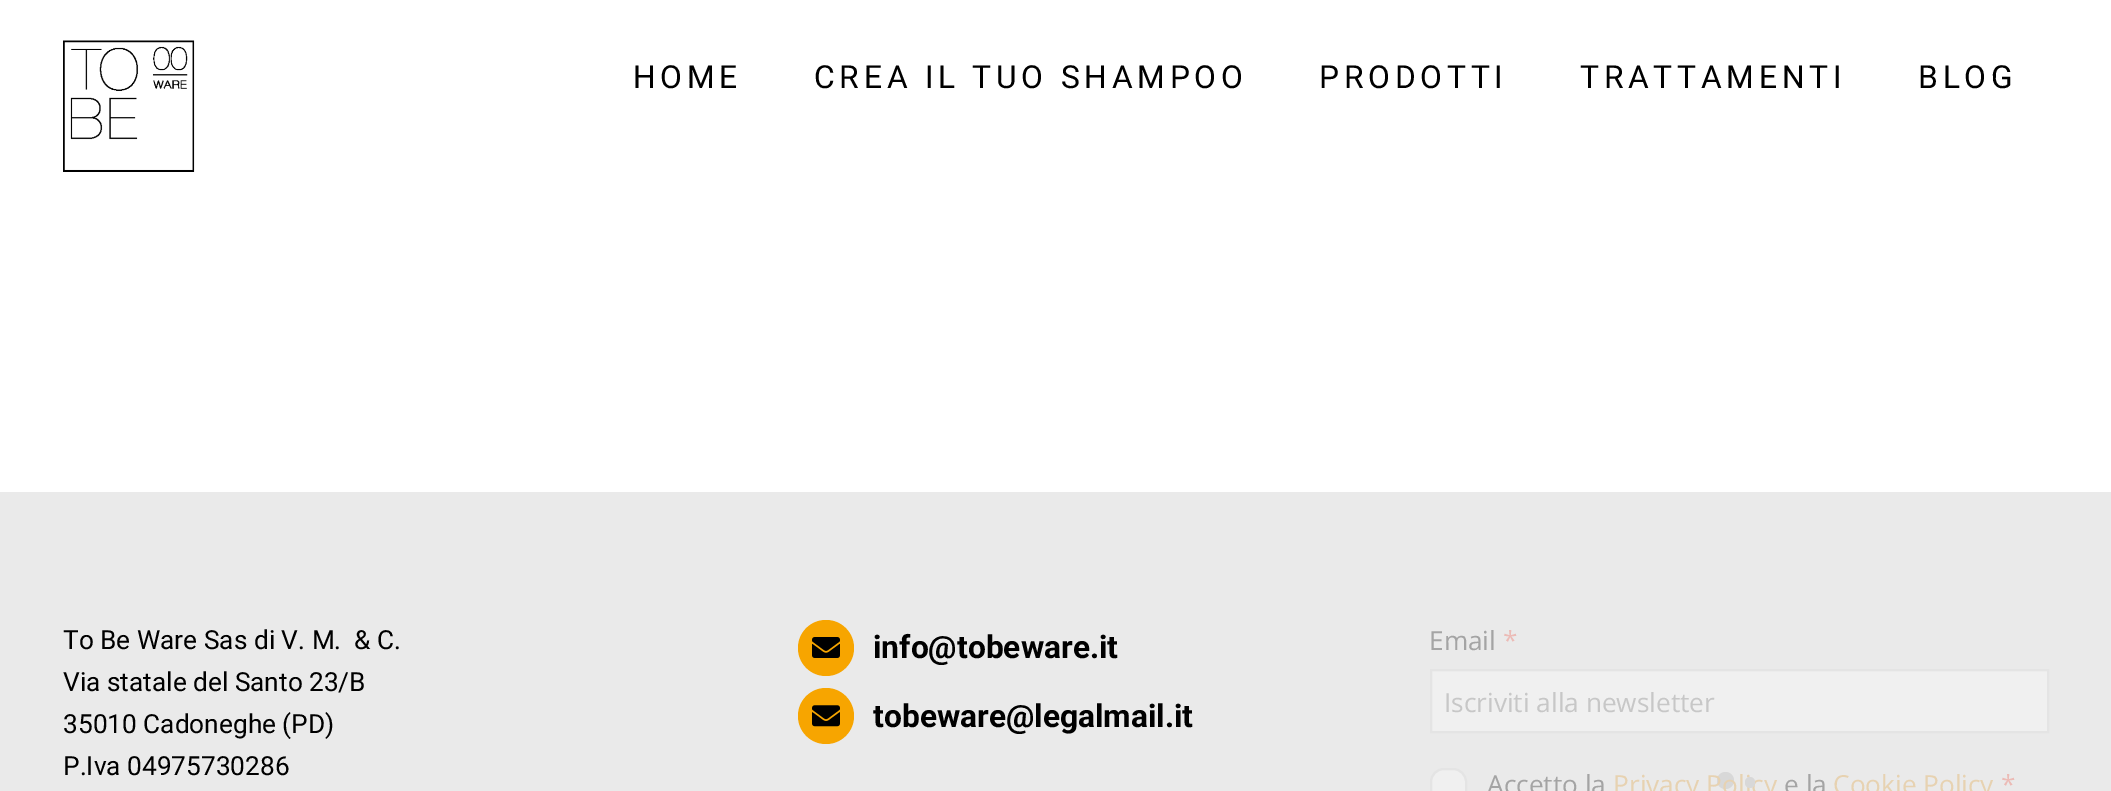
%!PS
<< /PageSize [2111 791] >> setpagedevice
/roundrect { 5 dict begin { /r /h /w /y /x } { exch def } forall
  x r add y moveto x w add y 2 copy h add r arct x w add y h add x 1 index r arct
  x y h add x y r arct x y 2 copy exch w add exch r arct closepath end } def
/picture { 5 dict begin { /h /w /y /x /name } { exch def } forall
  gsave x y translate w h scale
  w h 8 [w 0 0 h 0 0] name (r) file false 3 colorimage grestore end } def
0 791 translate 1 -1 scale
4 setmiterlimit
1 setgray
0 0 2111 791 rectfill
(img1.rgb) 63 40 132 132 picture
/Roboto-Regular [31.75 0 0 -31.75 0 0] selectfont
0 setgray
633 88 moveto 4.75 0 (HOME) ashow
814 88 moveto 4.75 0 (CREA IL TUO SHAMPOO) ashow
1319 88 moveto 4.75 0 (PRODOTTI) ashow
1580 88 moveto 4.75 0 (TRATTAMENTI) ashow
1918 88 moveto 4.75 0 (BLOG) ashow
0.918 setgray
0 492 2111 299 rectfill
/Roboto-Regular [26.25 0 0 -26.25 0 0] selectfont
0 setgray
63 649 moveto (To Be Ware Sas di V. M.  & C.) show
63 691 moveto (Via statale del Santo 23/B) show
63 733 moveto (35010 Cadoneghe \(PD\)) show
63 775 moveto (P.Iva 04975730286) show
0.969 0.647 0 setrgbcolor
newpath 826 648 28 0 360 arc closepath fill
(img2.rgb) 812 637 28 21 picture
/Roboto-Bold [31.75 0 0 -31.75 0 0] selectfont
0 setgray
873 658 moveto (info@tobeware.it) show
0.969 0.647 0 setrgbcolor
newpath 826 716 28 0 360 arc closepath fill
(img3.rgb) 812 705 28 22 picture
0 setgray
873 727 moveto (tobeware@legalmail.it) show
/OpenSans-Regular [26.25 0 0 -26.25 0 0] selectfont
0.643 setgray
1429 650 moveto (Email) show
0.925 0.733 0.714 setrgbcolor
1503 650 moveto (*) show
0.941 setgray
newpath 1431 670 moveto 2048 670 lineto 2048 732 lineto 1431 732 lineto closepath gsave fill grestore
0.894 setgray
2 setlinewidth
stroke
0.78 setgray
1444 712 moveto (Iscriviti alla newsletter) show
0.941 setgray
1431 769 35 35 13 roundrect gsave fill grestore
0.894 setgray
stroke
0.643 setgray
1487 794 moveto (Accetto la) show
0.847 setgray
newpath 1725.5 780.5 8.5 0 360 arc closepath fill
0.906 0.824 0.694 setrgbcolor
1613 794 moveto (Privacy Policy) show
0.643 setgray
1784 794 moveto (e la) show
0.906 0.824 0.694 setrgbcolor
1833 794 moveto (Cookie Policy) show
0.925 0.733 0.714 setrgbcolor
2001 794 moveto (*) show
0.847 setgray
1745 777 10 11 5 roundrect fill
showpage
